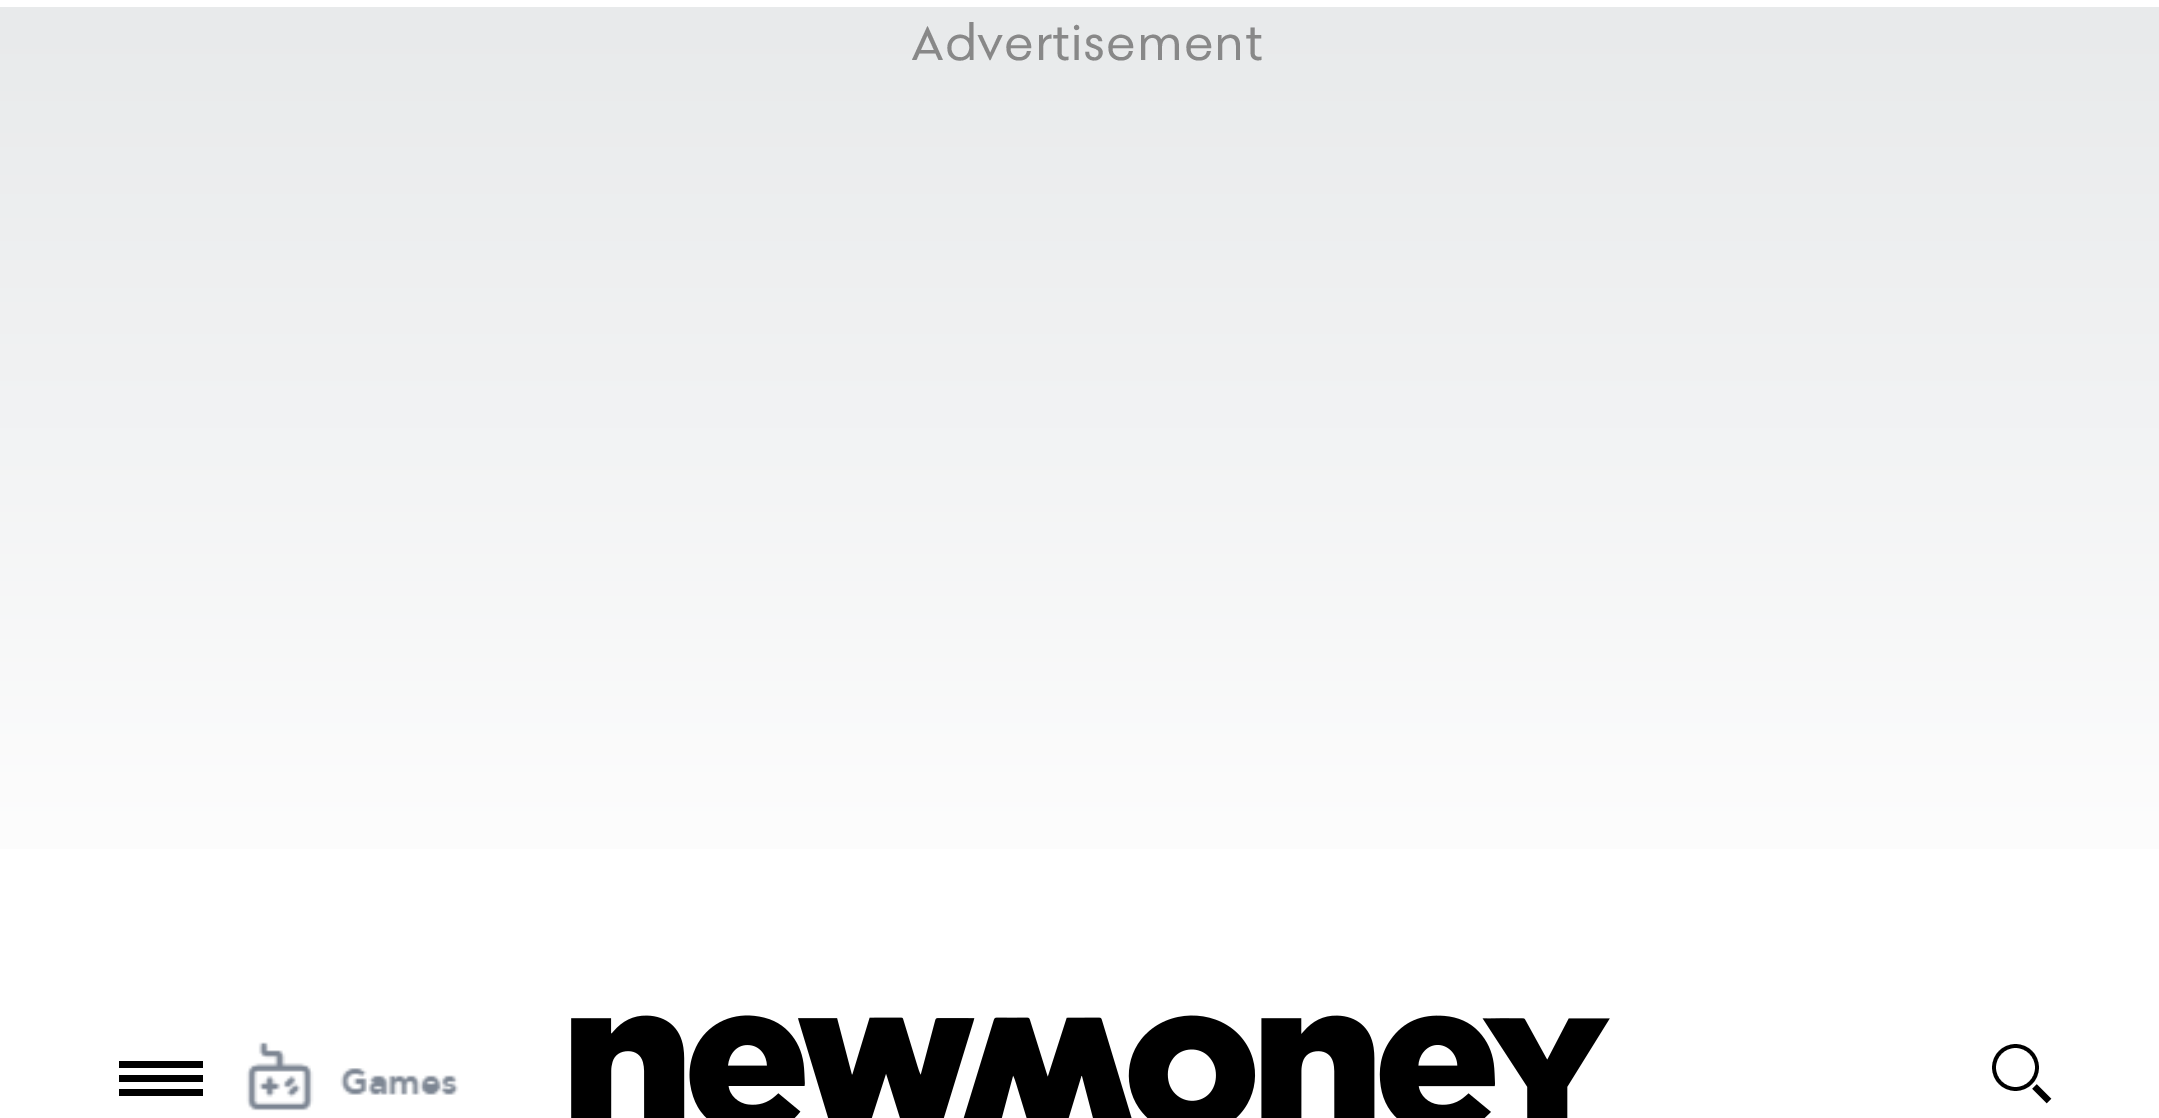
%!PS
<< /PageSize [2159 1118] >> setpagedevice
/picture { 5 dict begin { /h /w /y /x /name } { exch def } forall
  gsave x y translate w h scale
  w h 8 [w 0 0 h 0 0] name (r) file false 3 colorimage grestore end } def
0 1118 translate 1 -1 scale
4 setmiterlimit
1 setgray
0 0 2159 1118 rectfill
gsave newpath 0 7 moveto 2159 7 lineto 2159 849 lineto 0 849 lineto closepath clip newpath
<< /ShadingType 2 /ColorSpace /DeviceRGB /Coords [1080 952 1080 7] /Extend [true true] /Function << /FunctionType 2 /Domain [0 1] /C0 [1 1 1] /C1 [0.91 0.918 0.922] /N 1 >> >> shfill grestore
/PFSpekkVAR-Regular [56 0 0 -56 0 0] selectfont
0.533 setgray
911 60 moveto (Advertisement) show
0 setgray
119 1061 84 7 rectfill
119 1075 84 7 rectfill
119 1089 84 7 rectfill
(img1.rgb) 246 1042 213 69 picture
(img2.rgb) 571 1015 1039 103 picture
3.7 setlinewidth
newpath 2015.5 1067.5 21.5 0 360 arc closepath stroke
6.3 setlinewidth
newpath 2034.5 1086.5 moveto 2049 1101 lineto stroke
showpage
